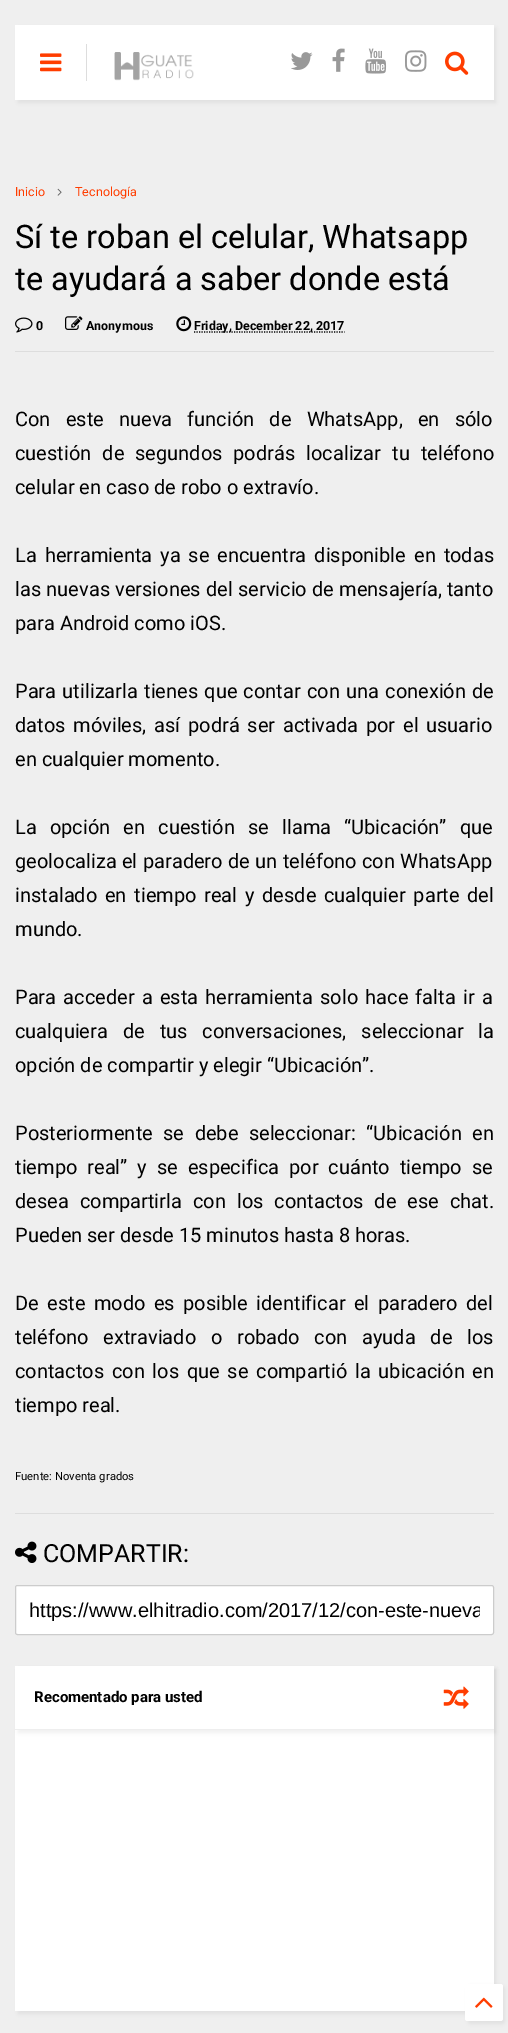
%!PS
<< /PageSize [508 2033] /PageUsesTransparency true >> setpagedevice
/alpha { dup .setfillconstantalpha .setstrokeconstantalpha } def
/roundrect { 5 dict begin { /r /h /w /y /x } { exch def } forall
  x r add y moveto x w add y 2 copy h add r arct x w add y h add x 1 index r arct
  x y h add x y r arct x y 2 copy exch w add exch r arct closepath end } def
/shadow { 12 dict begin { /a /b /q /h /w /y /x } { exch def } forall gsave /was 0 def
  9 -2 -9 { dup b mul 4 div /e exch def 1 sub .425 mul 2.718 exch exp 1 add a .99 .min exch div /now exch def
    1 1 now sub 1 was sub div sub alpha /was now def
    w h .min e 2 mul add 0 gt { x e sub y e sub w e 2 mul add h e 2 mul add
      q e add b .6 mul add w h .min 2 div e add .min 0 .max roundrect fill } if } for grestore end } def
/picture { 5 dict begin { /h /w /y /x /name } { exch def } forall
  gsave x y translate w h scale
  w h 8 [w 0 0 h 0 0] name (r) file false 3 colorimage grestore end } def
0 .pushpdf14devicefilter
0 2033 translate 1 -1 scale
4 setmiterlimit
0.937 setgray
0 0 508 2033 rectfill
0 setgray
18 28 478 75 0 2 0.05 shadow
1 setgray
15 25 479 75 rectfill
(img1.rgb) 40 53 22 19 picture
0.867 setgray
86 44 1 37 rectfill
(img2.rgb) 114 52 80 29 picture
(img3.rgb) 291 52 22 18 picture
(img4.rgb) 332 48 13 24 picture
(img5.rgb) 365 48 22 26 picture
(img6.rgb) 405 50 22 22 picture
(img7.rgb) 445 51 24 24 picture
/Roboto-Regular [12.5 0 0 -12.5 0 0] selectfont
1 0.239 0 setrgbcolor
15 196 moveto (Inicio) show
(img8.rgb) 57 188 5 8 picture
75 196 moveto (Tecnología) show
/Roboto-Regular [32.5 0 0 -32.5 0 0] selectfont
0 setgray
15 248 moveto (Sí te roban el celular, Whatsapp) show
15 290 moveto (te ayudará a saber donde está) show
0.867 setgray
15 351 479 1 rectfill
(img9.rgb) 15 317 18 16 picture
/Roboto-Bold [12.5 0 0 -12.5 0 0] selectfont
0 setgray
36 330 moveto (0) show
(img10.rgb) 65 316 18 14 picture
86 330 moveto (Anonymous) show
(img11.rgb) 176 316 16 16 picture
1.2 setlinewidth
[1.25 1.25] 0 setdash
newpath 194 332 moveto 344.5 332 lineto stroke
194 330 moveto (Friday, December 22, 2017) show
/Roboto-Regular [20 0 0 -20 0 0] selectfont
15 426 moveto 10.25 0 32 (Con este nueva función de WhatsApp, en sólo) widthshow
15 460 moveto 6 0 32 (cuestión de segundos podrás localizar tu teléfono) widthshow
15 494 moveto (celular en caso de robo o extravío.) show
15 562 moveto 3 0 32 (La herramienta ya se encuentra disponible en todas) widthshow
15 596 moveto 0.25 0 32 (las nuevas versiones del servicio de mensajería, tanto) widthshow
15 630 moveto (para Android como iOS.) show
15 698 moveto 1.25 0 32 (Para utilizarla tienes que contar con una conexión de) widthshow
15 732 moveto 2.75 0 32 (datos móviles, así podrá ser activada por el usuario) widthshow
15 766 moveto (en cualquier momento.) show
15 834 moveto 8.25 0 32 (La opción en cuestión se llama “Ubicación” que) widthshow
15 868 moveto 0.5 0 32 (geolocaliza el paradero de un teléfono con WhatsApp) widthshow
15 902 moveto 2.75 0 32 (instalado en tiempo real y desde cualquier parte del) widthshow
15 936 moveto (mundo.) show
15 1004 moveto 2.25 0 32 (Para acceder a esta herramienta solo hace falta ir a) widthshow
15 1038 moveto 10 0 32 (cualquiera de tus conversaciones, seleccionar la) widthshow
15 1072 moveto (opción de compartir y elegir “Ubicación”.) show
15 1140 moveto 5.5 0 32 (Posteriormente se debe seleccionar: “Ubicación en) widthshow
15 1174 moveto 5 0 32 (tiempo real” y se especifica por cuánto tiempo se) widthshow
15 1208 moveto 6 0 32 (desea compartirla con los contactos de ese chat.) widthshow
15 1242 moveto (Pueden ser desde 15 minutos hasta 8 horas.) show
15 1310 moveto 3.5 0 32 (De este modo es posible identificar el paradero del) widthshow
15 1344 moveto 9.75 0 32 (teléfono extraviado o robado con ayuda de los) widthshow
15 1378 moveto 2.75 0 32 (contactos con los que se compartió la ubicación en) widthshow
15 1412 moveto (tiempo real.) show
/Roboto-Regular [11.25 0 0 -11.25 0 0] selectfont
15 1480 moveto (Fuente: Noventa grados) show
0.867 setgray
15 1513 479 1 rectfill
(img12.rgb) 15 1541 22 22 picture
/Roboto-Regular [25 0 0 -25 0 0] selectfont
0 setgray
43 1562 moveto (COMPARTIR:) show
1 setgray
15.5 1585.5 478 49 2 roundrect gsave fill grestore
0.8 setgray
1 setlinewidth
[] 0 setdash
stroke
gsave
29 1599 451 22 rectclip
/LiberationSans-Regular [20 0 0 -20 0 0] selectfont
0 setgray
29 1617 moveto (https://www.elhitradio.com/2017/12/con-este-nueva) show
grestore
0 setgray
18 1669 478 345 0 2 0.05 shadow
1 setgray
15 1730 479 281 rectfill
0 setgray
18 1669 478 64 0 2 0.05 shadow
1 setgray
15 1666 479 63 rectfill
0.933 setgray
15 1729 479 1 rectfill
/Roboto-Bold [15 0 0 -15 0 0] selectfont
0 setgray
34 1702 moveto (Recomentado para usted) show
(img13.rgb) 443 1686 26 23 picture
468 1986 37 38 2.5 2 0.05 shadow
1 setgray
465 1984 38 37 2.5 roundrect fill
(img14.rgb) 475 1997 18 11 picture
.poppdf14devicefilter showpage
